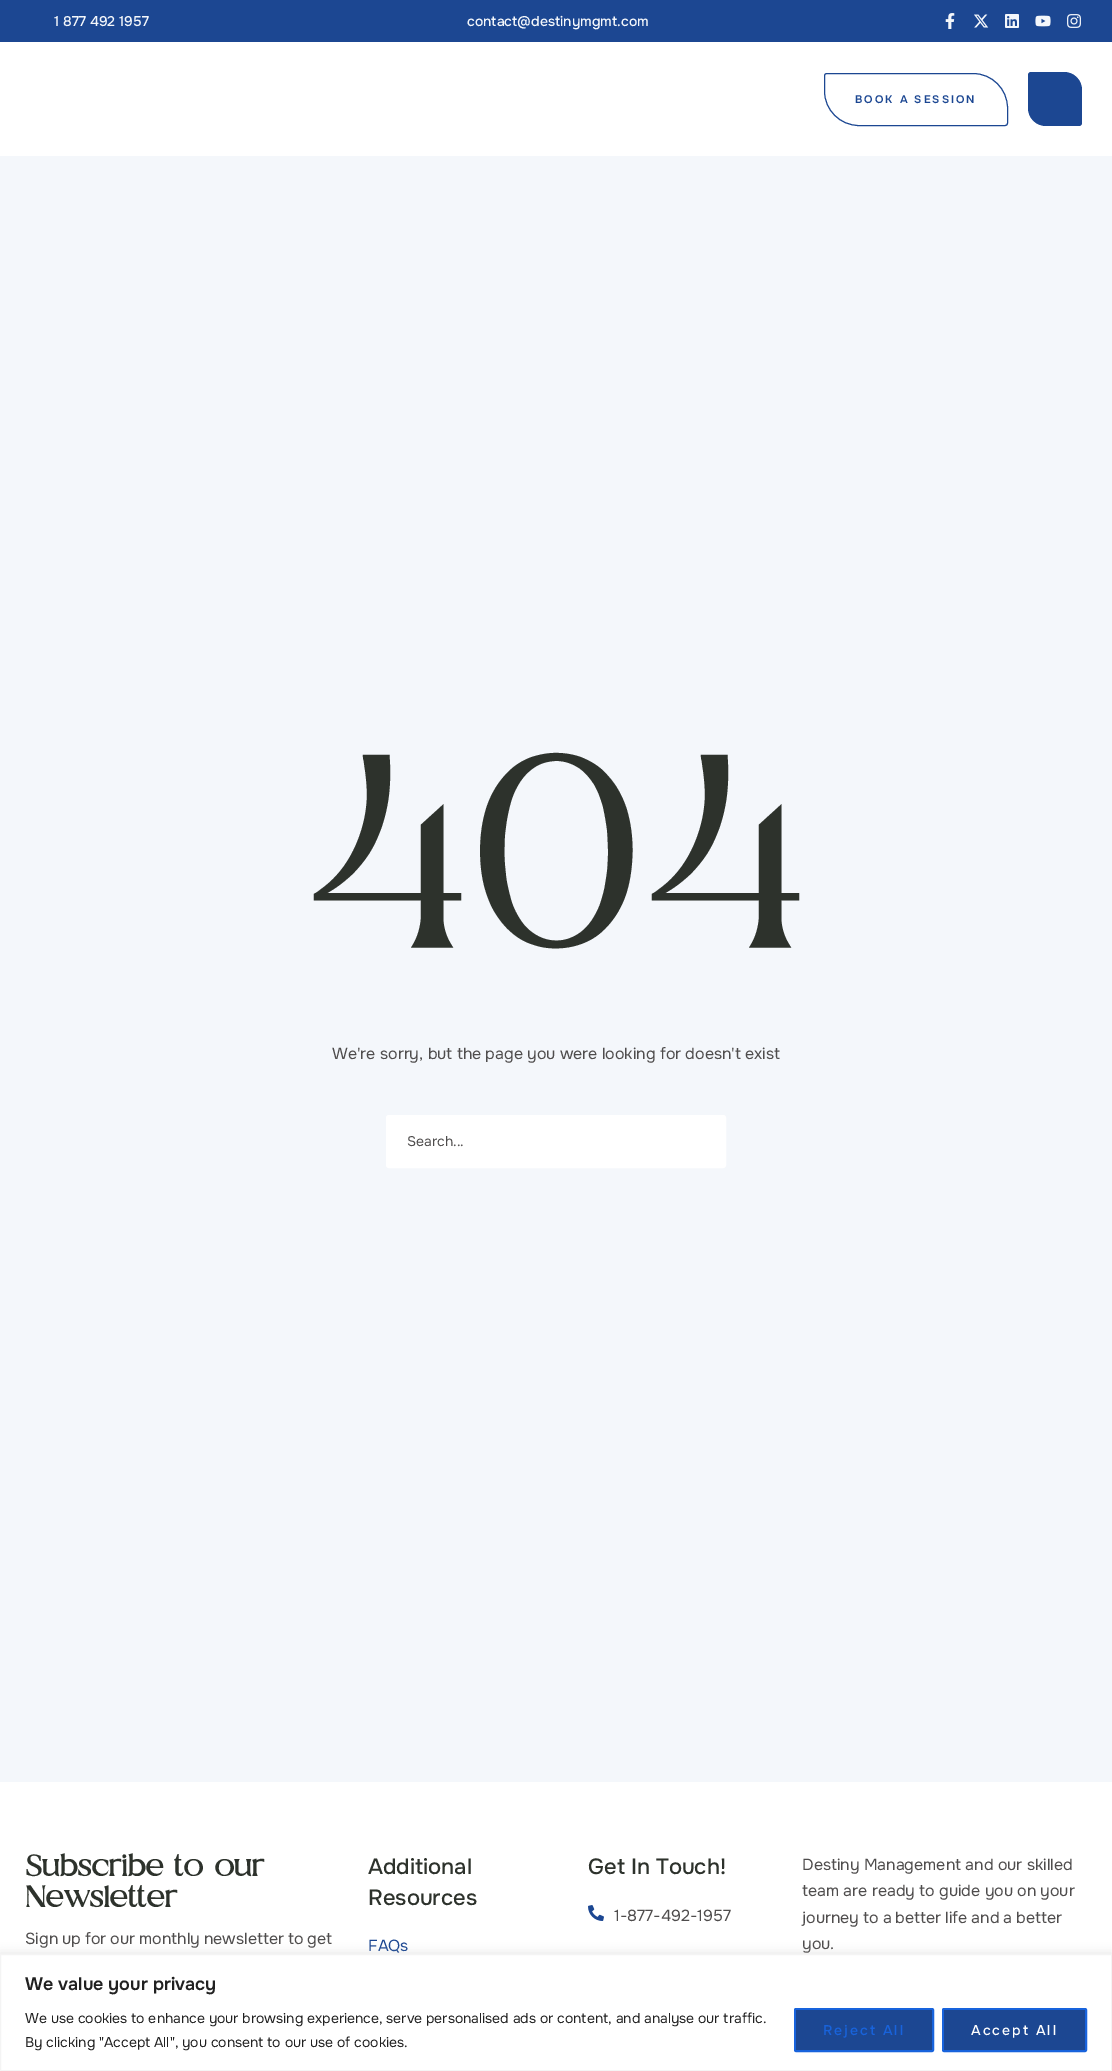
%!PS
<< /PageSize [1112 2071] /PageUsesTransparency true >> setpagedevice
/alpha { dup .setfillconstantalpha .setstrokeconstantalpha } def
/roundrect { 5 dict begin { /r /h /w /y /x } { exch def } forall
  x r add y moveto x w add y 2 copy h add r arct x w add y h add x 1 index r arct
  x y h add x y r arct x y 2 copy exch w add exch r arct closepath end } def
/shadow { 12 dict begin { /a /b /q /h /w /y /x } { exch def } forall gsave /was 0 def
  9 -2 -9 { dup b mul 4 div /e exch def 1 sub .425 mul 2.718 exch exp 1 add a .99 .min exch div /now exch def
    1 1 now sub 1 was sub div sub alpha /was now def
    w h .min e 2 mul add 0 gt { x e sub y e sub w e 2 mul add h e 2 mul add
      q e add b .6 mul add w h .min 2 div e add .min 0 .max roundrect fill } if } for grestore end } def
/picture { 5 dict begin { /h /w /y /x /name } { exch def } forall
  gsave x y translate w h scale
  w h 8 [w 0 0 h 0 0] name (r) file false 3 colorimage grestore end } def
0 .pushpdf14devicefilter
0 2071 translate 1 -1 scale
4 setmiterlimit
0.957 0.969 0.984 setrgbcolor
0 0 1112 2071 rectfill
0.11 0.278 0.573 setrgbcolor
0 0 1112 42 rectfill
/Onest-Medium [14 0 0 -14 0 0] selectfont
0.957 0.969 0.984 setrgbcolor
54 26 moveto (1 877 492 1957) show
467 26 moveto (contact@destinymgmt.com) show
(img1.rgb) 945 13 10 16 picture
(img2.rgb) 974 14 15 14 picture
(img3.rgb) 1005 14 14 14 picture
(img4.rgb) 1035 15 16 12 picture
(img5.rgb) 1067 14 14 14 picture
1 setgray
0 42 1112 114 rectfill
0.11 0.278 0.573 setrgbcolor
newpath 827 73.5 moveto 973 73.5 lineto 992 73.5 1007.5 89 1007.5 108 curveto 1007.5 123 lineto 1007.5 124.5 1006.5 125.5 1005 125.5 curveto 859 125.5 lineto 840 125.5 824.5 110 824.5 91 curveto 824.5 76 lineto 824.5 74.5 825.5 73.5 827 73.5 curveto closepath stroke
/Onest-SemiBold [11 0 0 -11 0 0] selectfont
855 103 moveto 2 0 (BOOK A SESSION) ashow
newpath 1031 72 moveto 1064 72 lineto 1074 72 1082 80 1082 90 curveto 1082 123 lineto 1082 124.5 1080.5 126 1079 126 curveto 1046 126 lineto 1036 126 1028 118 1028 108 curveto 1028 75 lineto 1028 73.5 1029.5 72 1031 72 curveto closepath fill
/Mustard-Medium [222 0 0 -222 0 0] selectfont
0.176 0.196 0.173 setrgbcolor
305 948 moveto -2 0 (404) ashow
/Onest-Regular [16 0 0 -16 0 0] selectfont
0.31 0.302 0.302 setrgbcolor
332 1059 moveto (We're sorry, but the page you were looking for doesn't exist) show
1 setgray
386.5 1115.5 339 52 2.5 roundrect gsave fill grestore
stroke
/Onest-Regular [14 0 0 -14 0 0] selectfont
0.31 0.302 0.302 setrgbcolor
407 1146 moveto (Search...) show
1 setgray
0 1782 1112 172 rectfill
/Mustard-Bold [24 0 0 -24 0 0] selectfont
0.176 0.196 0.173 setrgbcolor
25 1876 moveto -1 0 (Subscribe to our) ashow
25 1907 moveto -1 0 (Newsletter) ashow
/Onest-Regular [16 0 0 -16 0 0] selectfont
0.31 0.302 0.302 setrgbcolor
25 1944 moveto -0.25 0 32 (Sign up for our monthly newsletter to get) widthshow
/Onest-Medium [22 0 0 -22 0 0] selectfont
0.176 0.196 0.173 setrgbcolor
368 1874 moveto (Additional) show
368 1905 moveto (Resources) show
/Onest-Regular [16 0 0 -16 0 0] selectfont
0.11 0.278 0.573 setrgbcolor
368 1951 moveto (FAQs) show
/Onest-Medium [22 0 0 -22 0 0] selectfont
0.176 0.196 0.173 setrgbcolor
588 1874 moveto (Get In Touch!) show
(img6.rgb) 588 1905 16 16 picture
/Onest-Regular [16 0 0 -16 0 0] selectfont
0.31 0.302 0.302 setrgbcolor
614 1921 moveto (1-877-492-1957) show
802 1870 moveto (Destiny Management and our skilled) show
802 1896 moveto (team are ready to guide you on your) show
802 1923 moveto -0.25 0 32 (journey to a better life and a better) widthshow
802 1949 moveto (you.) show
0.675 0.671 0.671 setrgbcolor
0 1953 1112 117 0 5 0.3 shadow
1 setgray
newpath 0.5 1954.5 moveto 1111.5 1954.5 lineto 1111.5 2070.5 lineto 0.5 2070.5 lineto closepath gsave fill grestore
0.957 setgray
stroke
/Onest-SemiBold [18 0 0 -18 0 0] selectfont
0.129 setgray
25 1990 moveto (We value your privacy) show
/Onest-Regular [14 0 0 -14 0 0] selectfont
25 2023 moveto (We use cookies to enhance your browsing experience, serve personalised ads or content, and analyse our traffic.) show
25 2047 moveto (By clicking "Accept All", you consent to our use of cookies.) show
0.094 0.388 0.863 setrgbcolor
2 setlinewidth
795 2009 138 42 1 roundrect stroke
0.11 0.278 0.573 setrgbcolor
796 2010 136 40 rectfill
/Onest-Medium [14 0 0 -14 0 0] selectfont
0.094 0.388 0.863 setrgbcolor
823 2035 moveto 2 0 (Reject All) ashow
943 2009 143 42 1 roundrect stroke
0.11 0.278 0.573 setrgbcolor
944 2010 141 40 rectfill
1 setgray
971 2035 moveto 2 0 (Accept All) ashow
.poppdf14devicefilter showpage
